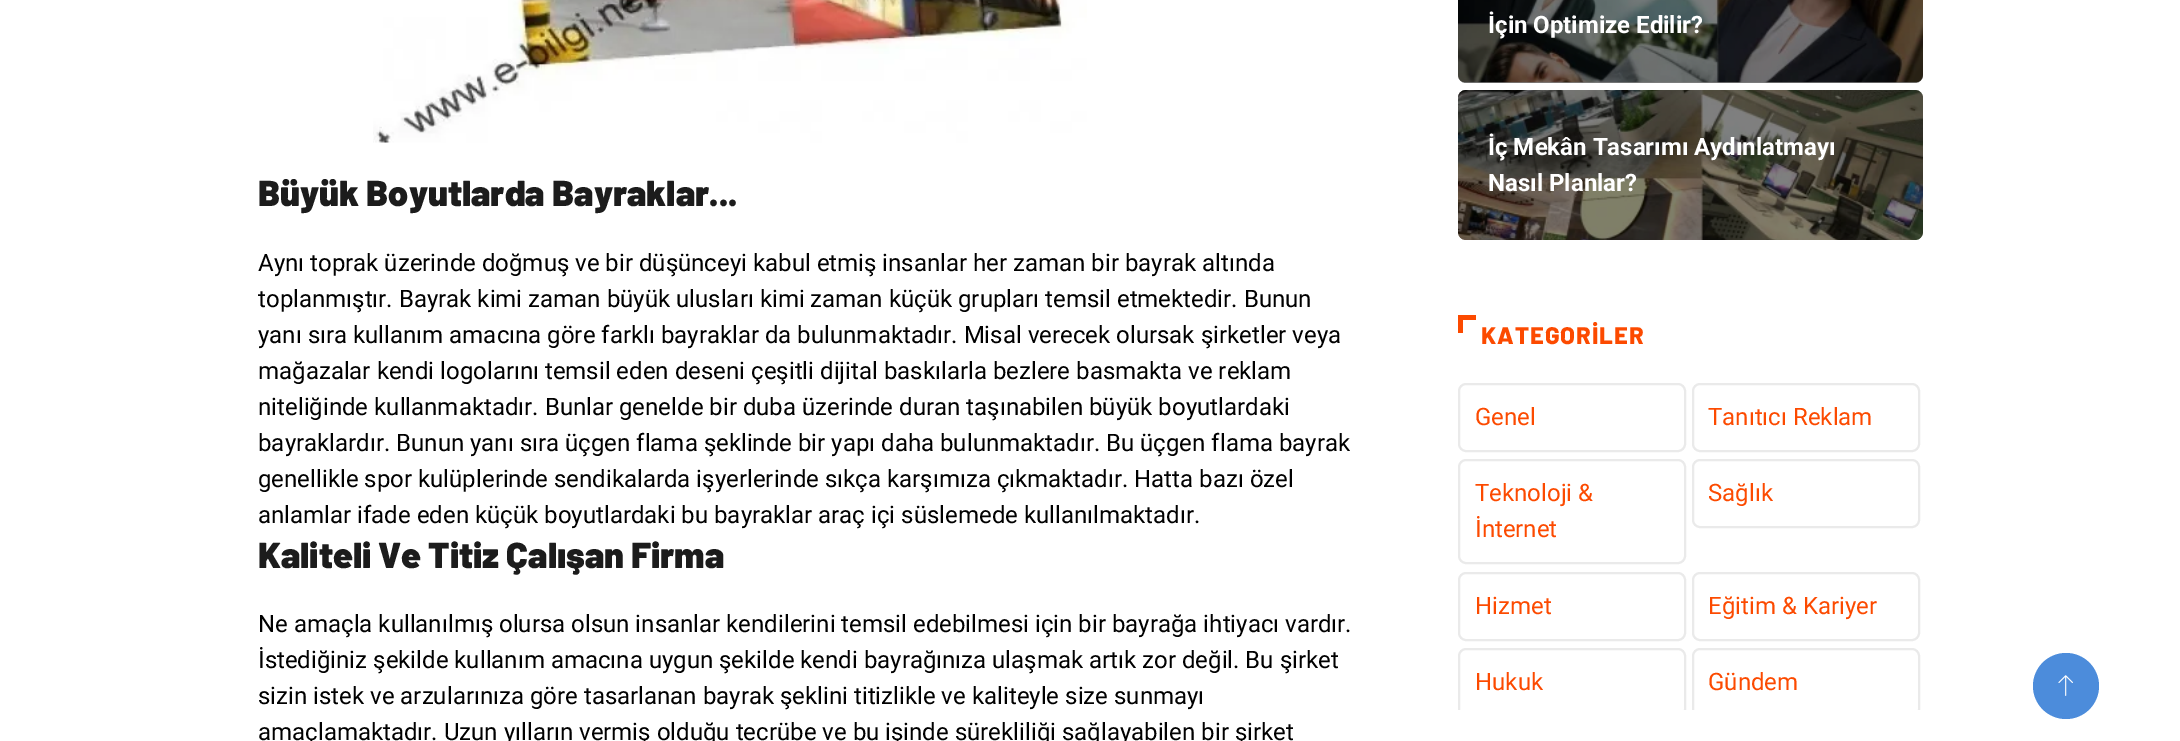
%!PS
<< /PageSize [2180 741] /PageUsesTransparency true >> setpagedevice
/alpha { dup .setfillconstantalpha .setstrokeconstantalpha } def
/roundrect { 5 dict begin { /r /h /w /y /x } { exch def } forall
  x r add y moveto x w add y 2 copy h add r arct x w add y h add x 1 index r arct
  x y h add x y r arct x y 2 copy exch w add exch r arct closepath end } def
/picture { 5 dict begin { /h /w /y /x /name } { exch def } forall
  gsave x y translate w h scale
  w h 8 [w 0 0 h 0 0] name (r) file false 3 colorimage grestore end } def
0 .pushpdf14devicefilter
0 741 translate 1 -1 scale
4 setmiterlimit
1 setgray
0 0 2180 741 rectfill
(img1.rgb) 373 0 714 143 picture
/Barlow-Black [36 0 0 -36 0 0] selectfont
0.11 setgray
258 206 moveto (Büyük Boyutlarda Bayraklar...) show
/Roboto-Regular [24 0 0 -24 0 0] selectfont
0 setgray
258 271 moveto (Aynı toprak üzerinde doğmuş ve bir düşünceyi kabul etmiş insanlar her zaman bir bayrak altında) show
258 307 moveto (toplanmıştır. Bayrak kimi zaman büyük ulusları kimi zaman küçük grupları temsil etmektedir. Bunun) show
258 343 moveto (yanı sıra kullanım amacına göre farklı bayraklar da bulunmaktadır. Misal verecek olursak şirketler veya) show
258 379 moveto (mağazalar kendi logolarını temsil eden deseni çeşitli dijital baskılarla bezlere basmakta ve reklam) show
258 415 moveto (niteliğinde kullanmaktadır. Bunlar genelde bir duba üzerinde duran taşınabilen büyük boyutlardaki) show
258 451 moveto (bayraklardır. Bunun yanı sıra üçgen flama şeklinde bir yapı daha bulunmaktadır. Bu üçgen flama bayrak) show
258 487 moveto (genellikle spor kulüplerinde sendikalarda işyerlerinde sıkça karşımıza çıkmaktadır. Hatta bazı özel) show
258 523 moveto (anlamlar ifade eden küçük boyutlardaki bu bayraklar araç içi süslemede kullanılmaktadır.) show
/Barlow-Black [36 0 0 -36 0 0] selectfont
0.11 setgray
258 568 moveto (Kaliteli Ve Titiz Çalışan Firma) show
/Roboto-Regular [24 0 0 -24 0 0] selectfont
0 setgray
258 632 moveto (Ne amaçla kullanılmış olursa olsun insanlar kendilerini temsil edebilmesi için bir bayrağa ihtiyacı vardır.) show
258 668 moveto (İstediğiniz şekilde kullanım amacına uygun şekilde kendi bayrağınıza ulaşmak artık zor değil. Bu şirket) show
258 704 moveto (sizin istek ve arzularınıza göre tasarlanan bayrak şeklini titizlikle ve kaliteyle size sunmayı) show
258 740 moveto (amaçlamaktadır. Uzun yılların vermiş olduğu tecrübe ve bu işinde sürekliliği sağlayabilen bir şirket) show
(img2.rgb) 1458 0 465 83 picture
0.5 alpha
1458 -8 465 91 8 roundrect fill
/Roboto-Bold [24 0 0 -24 0 0] selectfont
1 alpha
1 setgray
1488 33 moveto (İçin Optimize Edilir?) show
(img3.rgb) 1458 90 465 150 picture
0.5 alpha
0 setgray
1458 90 465 150 8 roundrect fill
1 alpha
1 setgray
1488 155 moveto (İç Mekân Tasarımı Aydınlatmayı) show
1488 191 moveto (Nasıl Planlar?) show
0.988 0.29 0 setrgbcolor
1458 315 5 18 rectfill
1458 315 18 5 rectfill
/Barlow-ExtraBold [24 0 0 -24 0 0] selectfont
1481 344 moveto 1 0 (KATEGORİLER) ashow
0.918 setgray
2 setlinewidth
1459 384 226 67 7 roundrect stroke
/Roboto-Regular [24 0 0 -24 0 0] selectfont
0.988 0.29 0 setrgbcolor
1475 425 moveto (Genel) show
0.918 setgray
1693 384 226 67 7 roundrect stroke
0.988 0.29 0 setrgbcolor
1708 425 moveto (Tanıtıcı Reklam) show
0.918 setgray
1459 460 226 103 7 roundrect stroke
0.988 0.29 0 setrgbcolor
1475 501 moveto (Teknoloji &) show
1475 537 moveto (İnternet) show
0.918 setgray
1693 460 226 67 7 roundrect stroke
0.988 0.29 0 setrgbcolor
1708 501 moveto (Sağlık) show
0.918 setgray
1459 573 226 67 7 roundrect stroke
0.988 0.29 0 setrgbcolor
1475 614 moveto (Hizmet) show
0.918 setgray
1693 573 226 67 7 roundrect stroke
0.988 0.29 0 setrgbcolor
1708 614 moveto (Eğitim & Kariyer) show
gsave
1458 383 465 327 rectclip
0.918 setgray
1459 649 226 67 7 roundrect stroke
grestore
1475 690 moveto (Hukuk) show
gsave
1458 383 465 327 rectclip
0.918 setgray
1693 649 226 67 7 roundrect stroke
grestore
1708 690 moveto (Gündem) show
0.298 0.549 0.859 setrgbcolor
newpath 2066 686 33 0 360 arc closepath fill
(img4.rgb) 2058 675 15 21 picture
.poppdf14devicefilter showpage
